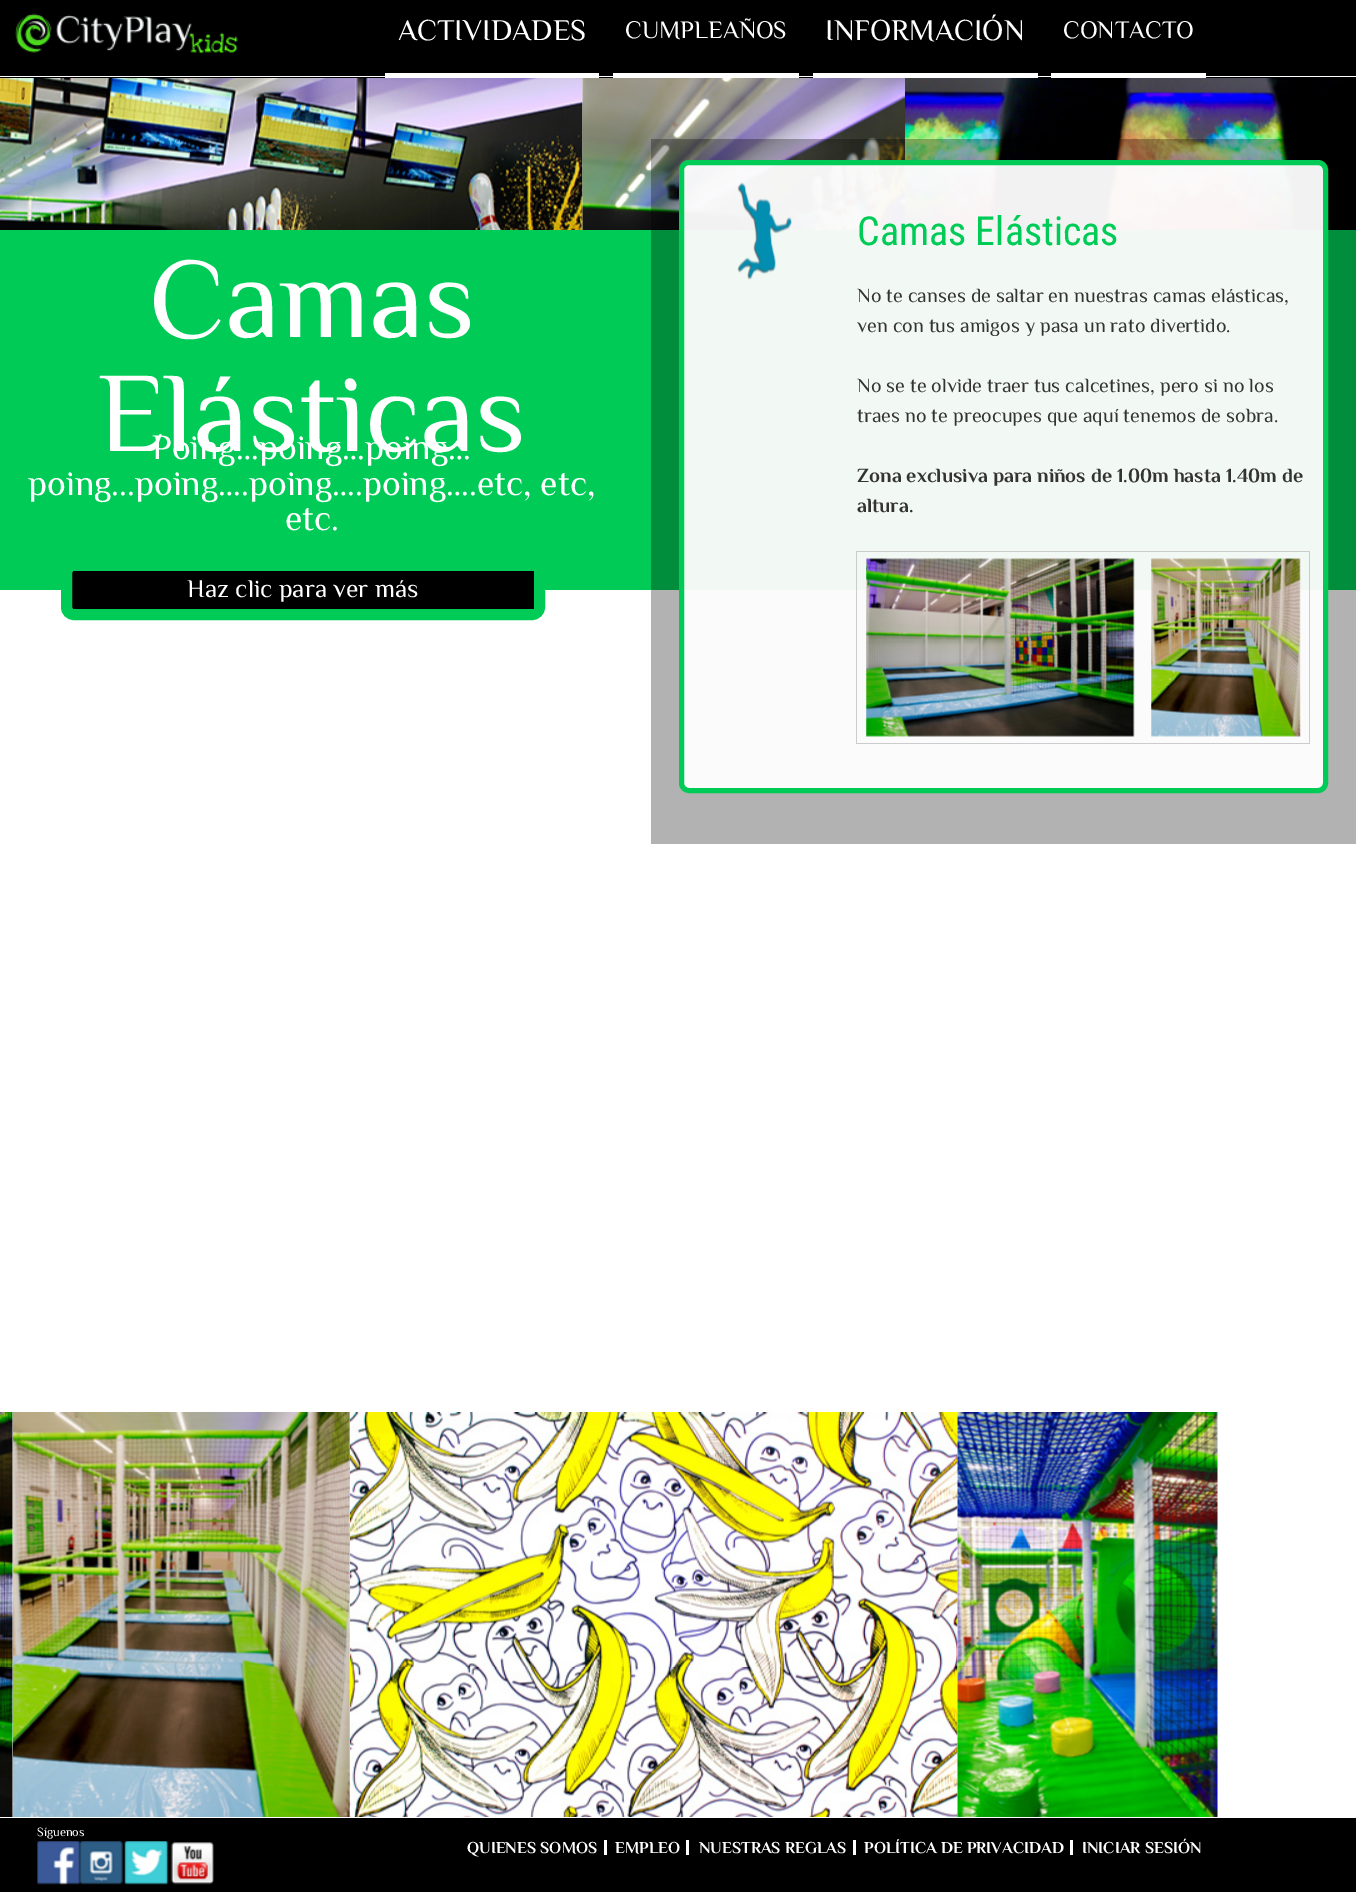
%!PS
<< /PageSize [1356 1892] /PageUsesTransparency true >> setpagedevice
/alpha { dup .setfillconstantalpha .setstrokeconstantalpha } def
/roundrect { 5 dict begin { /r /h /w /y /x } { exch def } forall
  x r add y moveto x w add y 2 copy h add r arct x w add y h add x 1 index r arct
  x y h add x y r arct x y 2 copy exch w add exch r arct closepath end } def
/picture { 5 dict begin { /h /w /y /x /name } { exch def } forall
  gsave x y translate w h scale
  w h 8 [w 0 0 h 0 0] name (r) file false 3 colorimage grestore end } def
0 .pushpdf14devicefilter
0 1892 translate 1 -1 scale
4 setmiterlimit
1 setgray
0 0 1356 1892 rectfill
0 setgray
0 0 1356 78 rectfill
1 setgray
0 76 1356 1 rectfill
(img1.rgb) 15 13 223 41 picture
385 73 214 5 rectfill
/Philosopher-Regular [30 0 0 -30 0 0] selectfont
398 40 moveto (ACTIVIDADES) show
613 73 186 5 rectfill
/Philosopher-Regular [25 0 0 -25 0 0] selectfont
625 38 moveto (CUMPLEAÑOS) show
813 73 225 5 rectfill
/Philosopher-Regular [30 0 0 -30 0 0] selectfont
825 40 moveto (INFORMACIÓN) show
1051 73 155 5 rectfill
/Philosopher-Regular [25 0 0 -25 0 0] selectfont
1063 38 moveto (CONTACTO) show
(img2.rgb) 0 78 583 152 picture
(img3.rgb) 582 78 323 152 picture
(img4.rgb) 905 78 451 152 picture
0 0.796 0.337 setrgbcolor
0 230 1356 360 rectfill
/Philosopher-Regular [114 0 0 -114 0 0] selectfont
1 setgray
149 337 moveto (Camas) show
98 451 moveto (Elásticas) show
/Philosopher-Regular [35.5 0 0 -35.5 0 0] selectfont
152 459 moveto (Poing…poing…poing…) show
28 495 moveto (poing...poing….poing….poing….etc, etc,) show
285 530 moveto (etc.) show
0 setgray
66.5 565.5 473 49 7.5 roundrect gsave fill grestore
0 0.796 0.337 setrgbcolor
11 setlinewidth
stroke
0 setgray
73 571 461 38 rectfill
/Philosopher-Regular [25.5 0 0 -25.5 0 0] selectfont
1 setgray
187 597 moveto (Haz clic para ver más) show
0.3 alpha
0 setgray
651 139 705 705 rectfill
0.95 alpha
1 setgray
681.5 162.5 644 628 7.5 roundrect fill
1 alpha
0 0.796 0.337 setrgbcolor
5 setlinewidth
681.5 162.5 644 628 7.5 roundrect stroke
(img5.rgb) 737 182 55 98 picture
/RobotoCondensed-Regular [40 0 0 -40 0 0] selectfont
857 245 moveto (Camas Elásticas) show
/Philosopher-Regular [20 0 0 -20 0 0] selectfont
0.2 setgray
857 302 moveto (No te canses de saltar en nuestras camas elásticas,) show
857 332 moveto (ven con tus amigos y pasa un rato divertido.) show
857 392 moveto (No se te olvide traer tus calcetines, pero si no los) show
857 422 moveto (traes no te preocupes que aquí tenemos de sobra.) show
/Philosopher-Bold [20 0 0 -20 0 0] selectfont
857 482 moveto (Zona exclusiva para niños de 1.00m hasta 1.40m de) show
857 512 moveto (altura.) show
0.8 setgray
856 551 454 1 rectfill
1309 551 1 193 rectfill
856 743 454 1 rectfill
856 551 1 193 rectfill
(img6.rgb) 866 558 269 179 picture
(img7.rgb) 1151 558 150 179 picture
(img8.rgb) 0 1412 13 405 picture
(img9.rgb) 13 1412 337 405 picture
(img10.rgb) 350 1412 608 405 picture
(img11.rgb) 957 1412 261 405 picture
0 setgray
0 1818 1356 74 rectfill
/Philosopher-Regular [12.5 0 0 -12.5 0 0] selectfont
1 setgray
37 1836 moveto (Síguenos) show
(img12.rgb) 37 1841 44 44 picture
(img13.rgb) 79 1841 44 44 picture
(img14.rgb) 124 1841 45 44 picture
(img15.rgb) 170 1842 44 43 picture
/Philosopher-Bold [16.5 0 0 -16.5 0 0] selectfont
467 1853 moveto (QUIENES SOMOS) show
604 1840 3 15 rectfill
615 1853 moveto (EMPLEO) show
686 1840 3 15 rectfill
699 1853 moveto (NUESTRAS REGLAS) show
853 1840 3 15 rectfill
864 1853 moveto (POLÍTICA DE PRIVACIDAD) show
1070 1840 3 15 rectfill
1082 1853 moveto (INICIAR SESIÓN) show
.poppdf14devicefilter showpage
